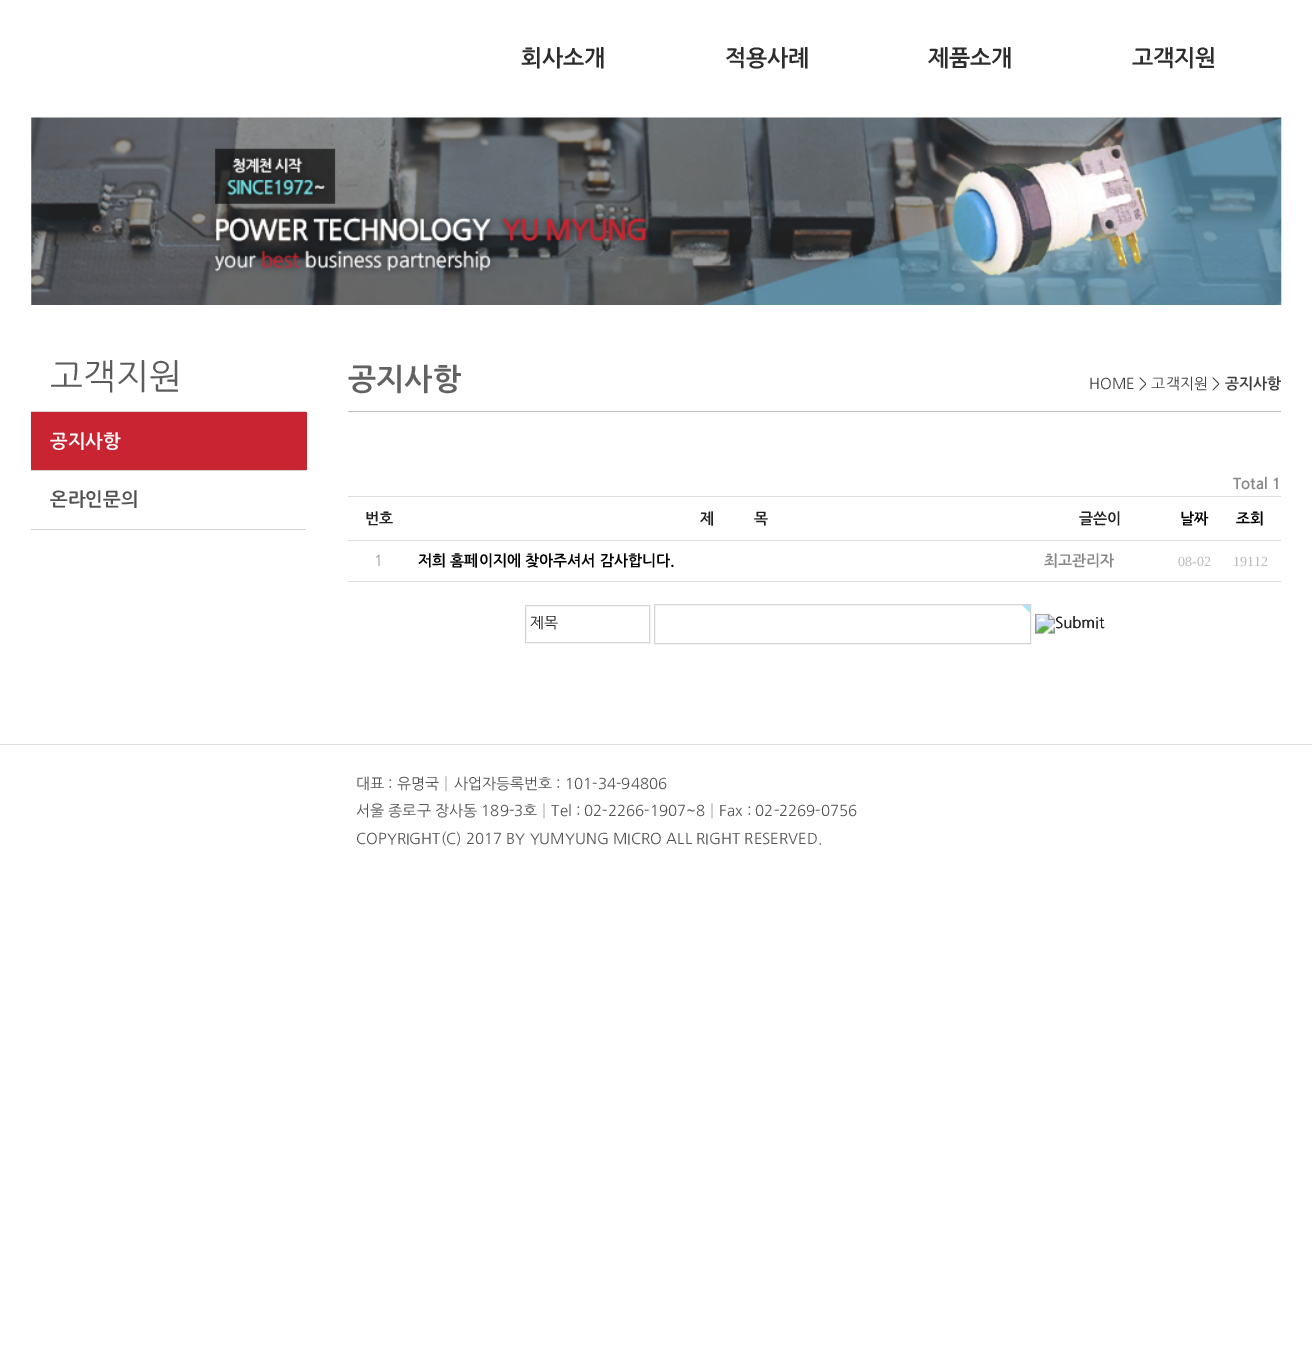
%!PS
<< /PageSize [1312 1359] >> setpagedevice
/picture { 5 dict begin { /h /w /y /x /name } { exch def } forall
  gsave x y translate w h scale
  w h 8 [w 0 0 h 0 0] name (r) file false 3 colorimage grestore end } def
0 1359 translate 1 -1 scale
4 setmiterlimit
1 setgray
0 0 1312 1359 rectfill
/NanumGothic-Bold [22.5 0 0 -22.5 0 0] selectfont
0.176 setgray
521 66 moveto (회사소개) show
725 66 moveto (적용사례) show
928 66 moveto (제품소개) show
1132 66 moveto (고객지원) show
(img1.rgb) 31 117 1251 188 picture
0.827 setgray
31 411 275 1 rectfill
/NanumGothic-Regular [35 0 0 -35 0 0] selectfont
0.365 0.361 0.361 setrgbcolor
50 389 moveto (고객지원) show
0.788 0.141 0.192 setrgbcolor
31 412 276 58 rectfill
0.827 setgray
31 470 275 1 rectfill
/NanumGothic-Bold [18.75 0 0 -18.75 0 0] selectfont
1 setgray
50 448 moveto (공지사항) show
0.827 setgray
31 529 275 1 rectfill
0.322 setgray
50 506 moveto (온라인문의) show
0.741 setgray
348 411 933 1 rectfill
/NanumGothic-Bold [30 0 0 -30 0 0] selectfont
0.384 setgray
348 390 moveto (공지사항) show
/NanumGothic-Regular [15 0 0 -15 0 0] selectfont
0.247 setgray
1089 389 moveto (HOME > 고객지원 >) show
/NanumGothic-Bold [15 0 0 -15 0 0] selectfont
1225 389 moveto (공지사항) show
0.533 setgray
1233 489 moveto (Total 1) show
0.133 setgray
365 524 moveto (번호) show
700 524 moveto (제) show
754 524 moveto (목) show
1079 524 moveto (글쓴이) show
0 setgray
1180 524 moveto (날짜) show
0.867 setgray
348 496 933 1 rectfill
348 540 933 1 rectfill
0 setgray
1236 524 moveto (조회) show
/NanumGothic-Regular [15 0 0 -15 0 0] selectfont
0.6 setgray
374 566 moveto (1) show
/NanumGothic-Bold [15 0 0 -15 0 0] selectfont
0 setgray
418 566 moveto (저희 홈페이지에 찾아주셔서 감사합니다.) show
0.533 setgray
1044 566 moveto (최고관리자) show
/LiberationSerif-Regular [14 0 0 -14 0 0] selectfont
0.729 setgray
1178 566 moveto (08-02) show
0.867 setgray
348 581 933 1 rectfill
0.729 setgray
1233 566 moveto (19112) show
0.835 setgray
525.5 605.5 124 37 rectstroke
gsave
530 616 114 15 rectclip
/NanumGothic-Regular [15 0 0 -15 0 0] selectfont
0.133 setgray
530 628 moveto (제목) show
grestore
(img2.rgb) 1022 605 8 8 picture
654.5 604.5 376 39 rectstroke
(img3.rgb) 1035 613 70 21 picture
/NanumGothic-Regular [15 0 0 -15 0 0] selectfont
0.133 setgray
1055 628 moveto (Submit) show
0.867 setgray
0 744 1312 1 rectfill
0.322 setgray
356 789 moveto (대표 : 유명국│사업자등록번호 : 101-34-94806) show
356 816 moveto (서울 종로구 장사동 189-3호│Tel : 02-2266-1907~8│Fax : 02-2269-0756) show
356 844 moveto (COPYRIGHT\(C\) 2017 BY YUMYUNG MICRO ALL RIGHT RESERVED.) show
showpage
